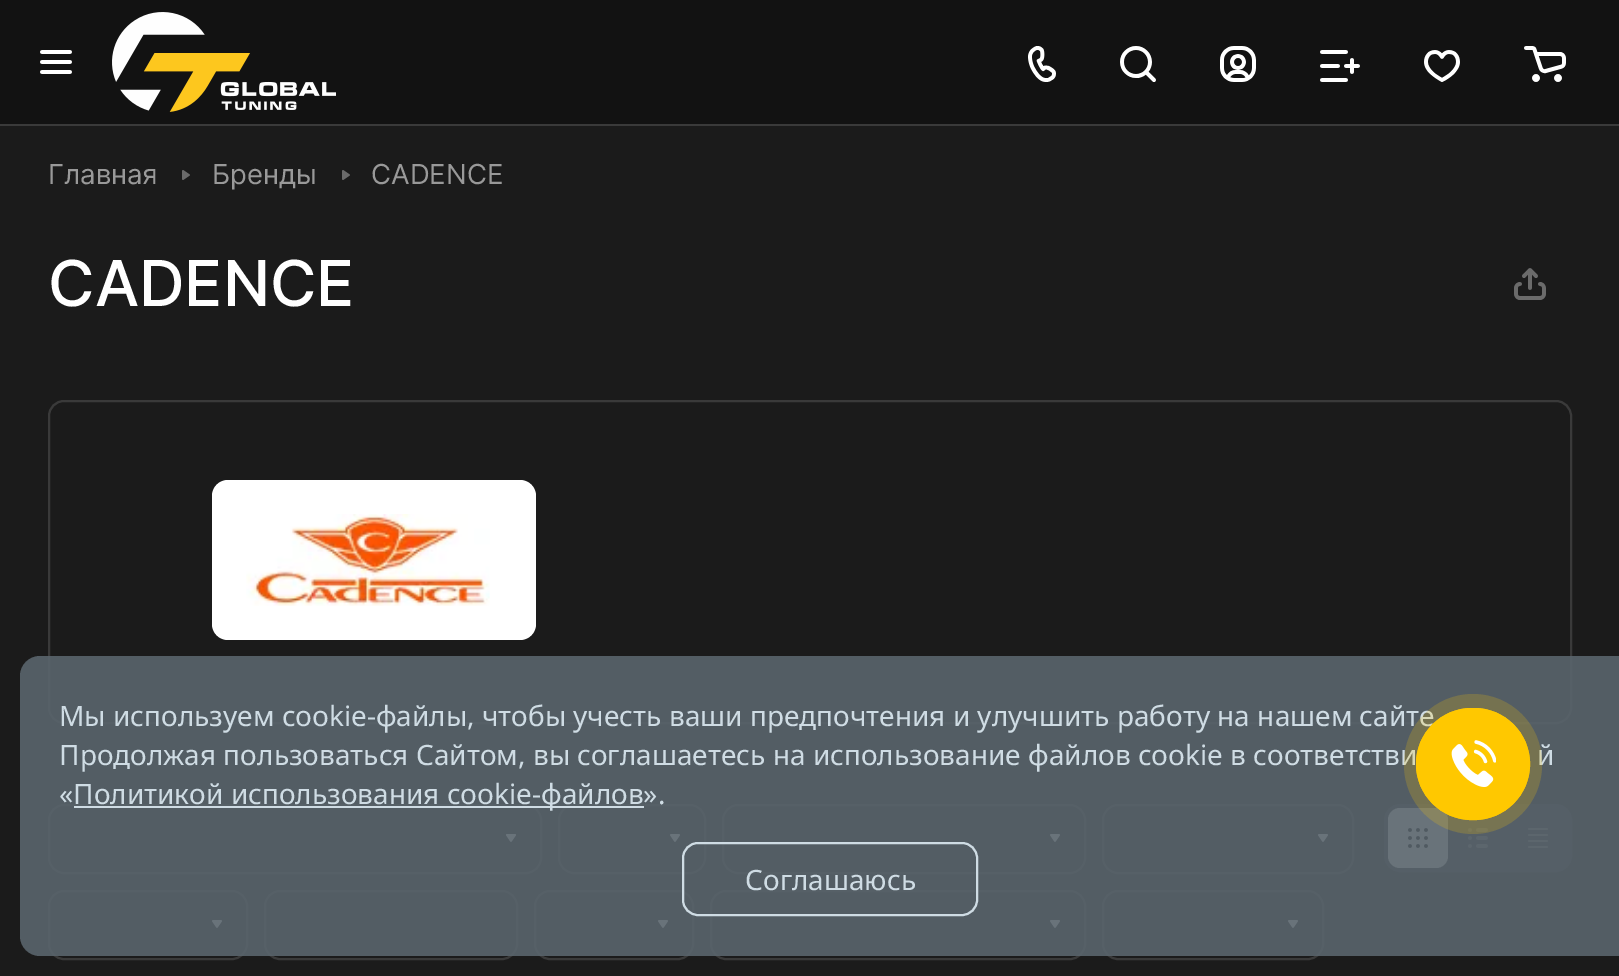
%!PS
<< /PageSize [1619 976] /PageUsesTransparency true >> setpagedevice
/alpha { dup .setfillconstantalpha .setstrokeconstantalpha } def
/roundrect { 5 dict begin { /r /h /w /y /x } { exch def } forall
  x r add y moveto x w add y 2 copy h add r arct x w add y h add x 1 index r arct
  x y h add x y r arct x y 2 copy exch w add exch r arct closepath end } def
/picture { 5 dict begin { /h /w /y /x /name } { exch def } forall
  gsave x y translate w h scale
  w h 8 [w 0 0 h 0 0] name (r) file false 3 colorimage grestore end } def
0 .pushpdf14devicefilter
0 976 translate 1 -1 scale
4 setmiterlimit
0.106 setgray
0 0 1619 976 rectfill
0.227 setgray
0 124 1619 2 rectfill
0.071 setgray
0 0 1619 124 rectfill
(img1.rgb) 40 50 32 24 picture
(img2.rgb) 112 12 224 100 picture
(img3.rgb) 1028 46 28 36 picture
(img4.rgb) 1120 46 36 36 picture
(img5.rgb) 1220 46 36 36 picture
(img6.rgb) 1320 50 40 32 picture
(img7.rgb) 1424 50 36 32 picture
(img8.rgb) 1524 46 42 36 picture
/Inter-Regular [27.5 0 0 -27.5 0 0] selectfont
0.6 setgray
48 184 moveto (Главная) show
(img9.rgb) 182 170 8 10 picture
212 184 moveto (Бренды) show
(img9.rgb) 342 170 8 10 picture
371 184 moveto (CADENCE) show
/Inter-Medium [63.25 0 0 -63.25 0 0] selectfont
1 setgray
48 306 moveto (CADENCE) show
(img10.rgb) 1514 268 32 32 picture
0.227 setgray
2 setlinewidth
49 401 1522 322 15 roundrect stroke
1 setgray
212 480 324 160 16 roundrect fill
(img11.rgb) 246 514 244 92 picture
0.227 setgray
49 805 492 68 15 roundrect stroke
(img12.rgb) 506 834 10 8 picture
559 805 146 68 15 roundrect stroke
(img13.rgb) 670 834 10 8 picture
723 805 362 68 15 roundrect stroke
(img13.rgb) 1050 834 10 8 picture
1103 805 250 68 15 roundrect stroke
(img13.rgb) 1318 834 10 8 picture
49 891 198 68 15 roundrect stroke
(img13.rgb) 212 920 10 8 picture
265 891 252 68 15 roundrect stroke
535 891 158 68 15 roundrect stroke
(img13.rgb) 658 920 10 8 picture
711 891 374 68 15 roundrect stroke
(img13.rgb) 1050 920 10 8 picture
1103 891 220 68 15 roundrect stroke
(img13.rgb) 1288 920 10 8 picture
0.204 setgray
1386 806 184 64 14 roundrect gsave fill grestore
4 setlinewidth
stroke
1 setgray
1388 808 60 60 12 roundrect fill
(img14.rgb) 1408 828 20 20 picture
(img15.rgb) 1468 828 20 20 picture
(img16.rgb) 1528 828 20 20 picture
0.9 alpha
0.349 0.392 0.424 setrgbcolor
20 656 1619 300 20 roundrect fill
/NotoSans-Regular [28 0 0 -28 0 0] selectfont
1 alpha
0.812 0.863 0.894 setrgbcolor
59 726 moveto (Мы используем cookie-файлы, чтобы учесть ваши предпочтения и улучшить работу на нашем сайте) show
59 765 moveto (Продолжая пользоваться Сайтом, вы соглашаетесь на использование файлов cookie в соответстви) show
1537 765 moveto (й) show
0.2 alpha
1 0.784 0 setrgbcolor
1404 694 138 140 69 roundrect fill
1 alpha
2 setlinewidth
1417 709 112 110 55 roundrect stroke
1416 708 114 112 56 roundrect fill
(img17.rgb) 1451 740 45 47 picture
0.812 0.863 0.894 setrgbcolor
59 804 moveto («) show
74 806 570 2 rectfill
73 804 moveto (Политикой использования cookie-файлов».) show
683 843 294 72 15 roundrect stroke
745 890 moveto (Соглашаюсь) show
.poppdf14devicefilter showpage
